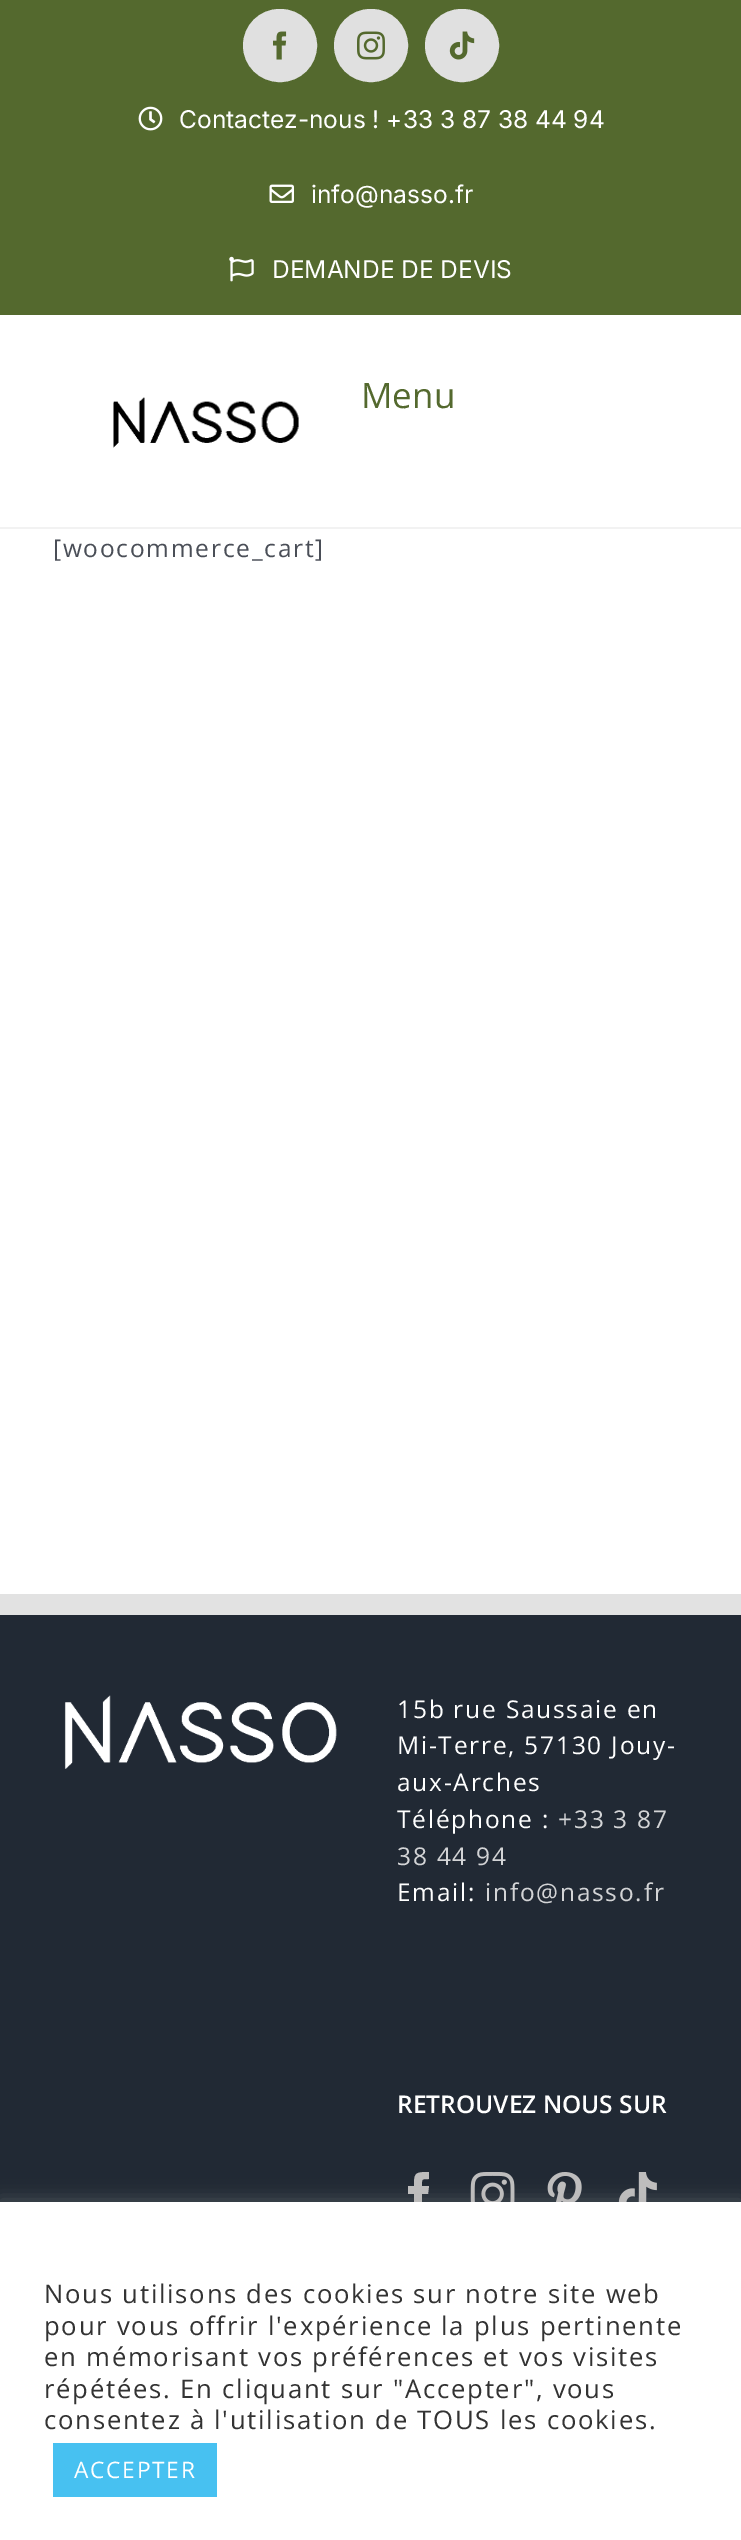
%!PS
<< /PageSize [741 2540] /PageUsesTransparency true >> setpagedevice
/alpha { dup .setfillconstantalpha .setstrokeconstantalpha } def
/roundrect { 5 dict begin { /r /h /w /y /x } { exch def } forall
  x r add y moveto x w add y 2 copy h add r arct x w add y h add x 1 index r arct
  x y h add x y r arct x y 2 copy exch w add exch r arct closepath end } def
/shadow { 12 dict begin { /a /b /q /h /w /y /x } { exch def } forall gsave /was 0 def
  9 -2 -9 { dup b mul 4 div /e exch def 1 sub .425 mul 2.718 exch exp 1 add a .99 .min exch div /now exch def
    1 1 now sub 1 was sub div sub alpha /was now def
    w h .min e 2 mul add 0 gt { x e sub y e sub w e 2 mul add h e 2 mul add
      q e add b .6 mul add w h .min 2 div e add .min 0 .max roundrect fill } if } for grestore end } def
/picture { 5 dict begin { /h /w /y /x /name } { exch def } forall
  gsave x y translate w h scale
  w h 8 [w 0 0 h 0 0] name (r) file false 3 colorimage grestore end } def
0 .pushpdf14devicefilter
0 2540 translate 1 -1 scale
4 setmiterlimit
1 setgray
0 0 741 2540 rectfill
0.329 0.412 0.18 setrgbcolor
0 0 741 315 rectfill
0.878 setgray
244 10 72 71 35.5 roundrect gsave fill grestore
2 setlinewidth
stroke
(img1.rgb) 273 31 14 29 picture
335 10 72 71 35.5 roundrect gsave fill grestore
stroke
(img2.rgb) 357 31 28 29 picture
426 10 72 71 35.5 roundrect gsave fill grestore
stroke
(img3.rgb) 449 31 26 29 picture
(img4.rgb) 138 106 25 25 picture
/Inter-Regular [24.5 0 0 -24.5 0 0] selectfont
1 setgray
179 128 moveto (Contactez-nous ! +33 3 87 38 44 94) show
(img5.rgb) 269 184 25 19 picture
311 203 moveto (info@nasso.fr) show
(img6.rgb) 229 256 25 26 picture
272 278 moveto (DEMANDE DE DEVIS) show
0.949 setgray
0 527 741 2 rectfill
(img7.rgb) 113 397 186 51 picture
/OpenSans-Regular [35 0 0 -35 0 0] selectfont
0.329 0.412 0.18 setrgbcolor
361 408 moveto (Menu) show
/OpenSans-Regular [24.5 0 0 -24.5 0 0] selectfont
0.29 0.306 0.341 setrgbcolor
53 557 moveto 1.75 0 ([woocommerce_cart]) ashow
0.129 0.161 0.204 setrgbcolor
0 1615 741 587 rectfill
0.886 setgray
0 1594 741 21 rectfill
(img8.rgb) 64 1695 273 74 picture
1 setgray
397 1718 moveto 1.75 0 (15b rue Saussaie en) ashow
397 1754 moveto 1.75 0 (Mi-Terre, 57130 Jouy-) ashow
397 1791 moveto 1.75 0 (aux-Arches) ashow
397 1828 moveto 1.75 0 (Téléphone :) ashow
0.827 0.831 0.839 setrgbcolor
558 1828 moveto 1.75 0 (+33 3 87) ashow
397 1865 moveto 1.75 0 (38 44 94) ashow
1 setgray
397 1901 moveto 1.75 0 (Email:) ashow
0.827 0.831 0.839 setrgbcolor
485 1901 moveto 1.75 0 (info@nasso.fr) ashow
/OpenSans-SemiBold [24.5 0 0 -24.5 0 0] selectfont
1 setgray
397 2113 moveto (RETROUVEZ NOUS SUR) show
0.745 0.741 0.741 setrgbcolor
newpath 422 2216 moveto 414 2216 lineto 414 2194 lineto 408 2194 lineto 408 2186 lineto 414 2186 lineto 414 2173 415 2172 429 2172 curveto 429 2179 lineto 421 2179 422 2179 422 2186 curveto 429 2186 lineto 428 2194 lineto 422 2194 lineto closepath fill
(img9.rgb) 470 2172 45 30 picture
(img10.rgb) 547 2172 35 30 picture
(img11.rgb) 618 2172 39 30 picture
0.675 0.671 0.671 setrgbcolor
0 2200 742 339 0 9 0.3 shadow
1 setgray
0 2202 741 338 rectfill
/OpenSans-Regular [25.7 0 0 -25.7 0 0] selectfont
0.2 setgray
44 2303 moveto 1.75 0 (Nous utilisons des cookies sur notre site web) ashow
44 2335 moveto 1.75 0 (pour vous offrir l'expérience la plus pertinente) ashow
44 2366 moveto 1.75 0 (en mémorisant vos préférences et vos visites) ashow
44 2398 moveto 1.75 0 (répétées. En cliquant sur "Accepter", vous) ashow
44 2429 moveto 1.75 0 (consentez à l'utilisation de TOUS les cookies.) ashow
0.278 0.757 0.945 setrgbcolor
53 2443 164 54 rectfill
/OpenSans-Regular [22.75 0 0 -22.75 0 0] selectfont
1 setgray
74 2478 moveto 1.75 0 (ACCEPTER) ashow
.poppdf14devicefilter showpage
